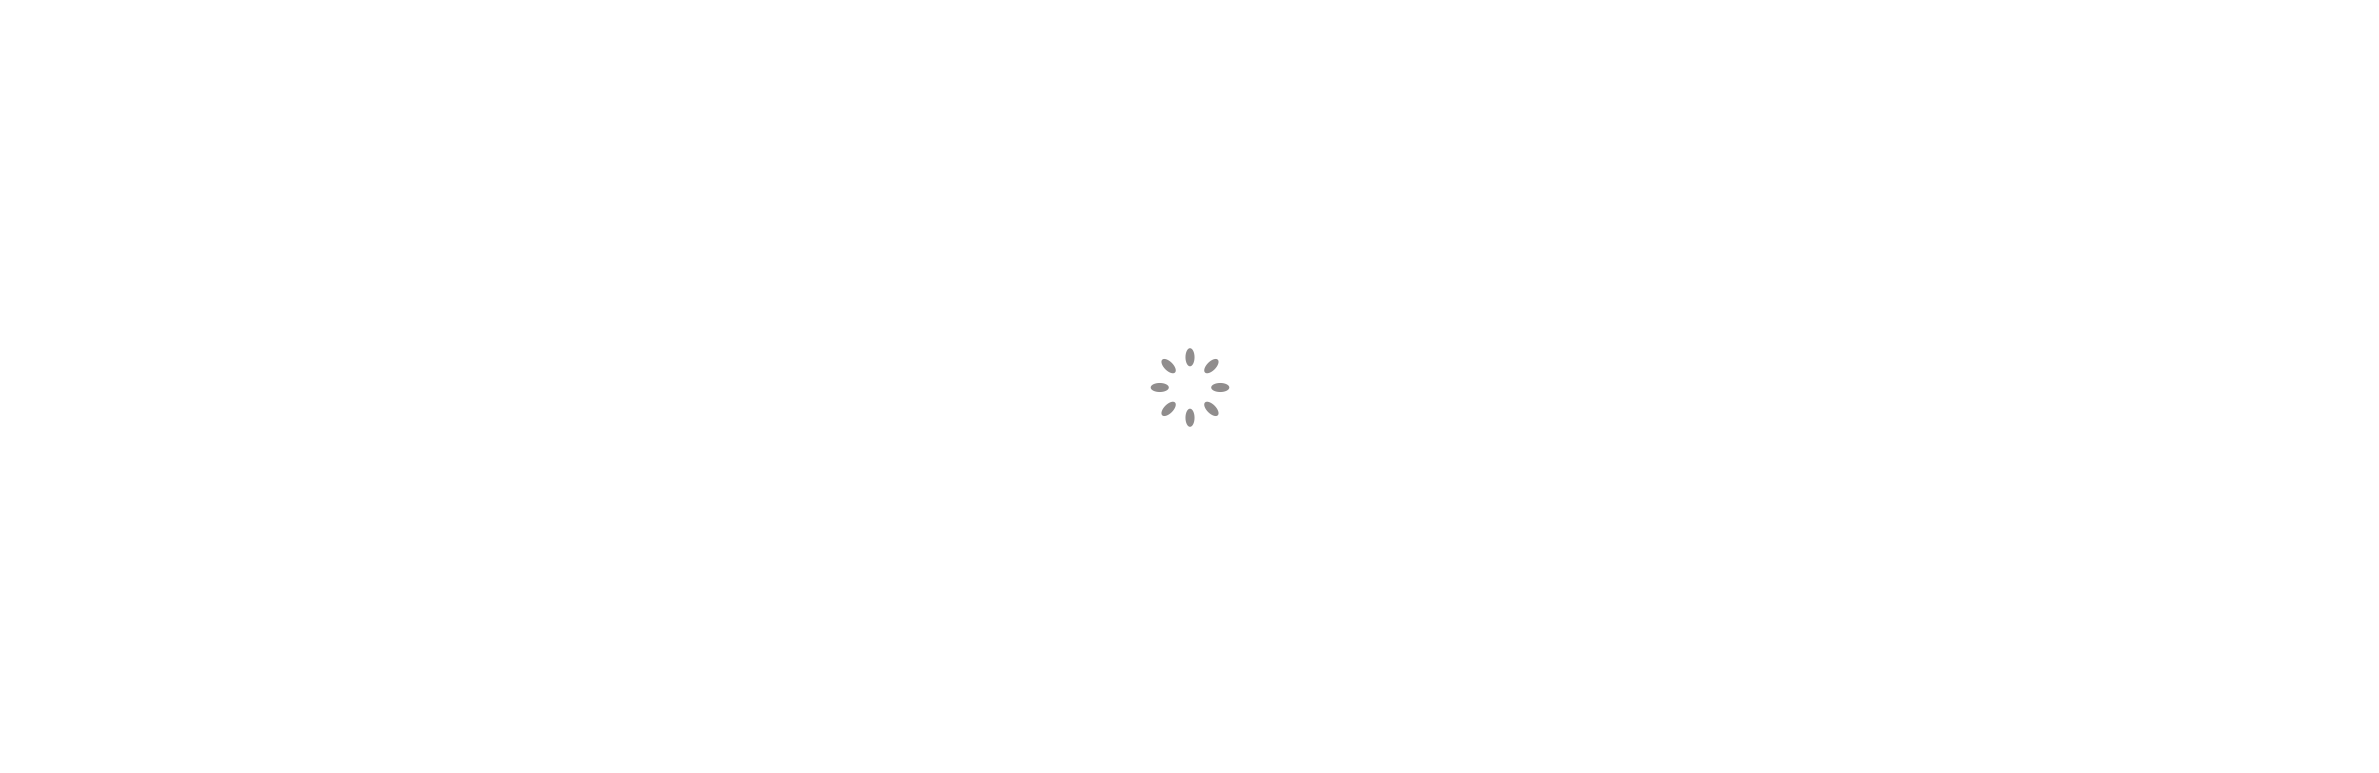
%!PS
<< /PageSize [2379 773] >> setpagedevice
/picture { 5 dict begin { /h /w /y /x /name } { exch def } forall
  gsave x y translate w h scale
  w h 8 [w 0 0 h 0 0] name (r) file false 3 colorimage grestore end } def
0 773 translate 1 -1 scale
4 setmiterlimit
1 setgray
0 0 2379 773 rectfill
(img1.rgb) 1150 348 80 79 picture
showpage
